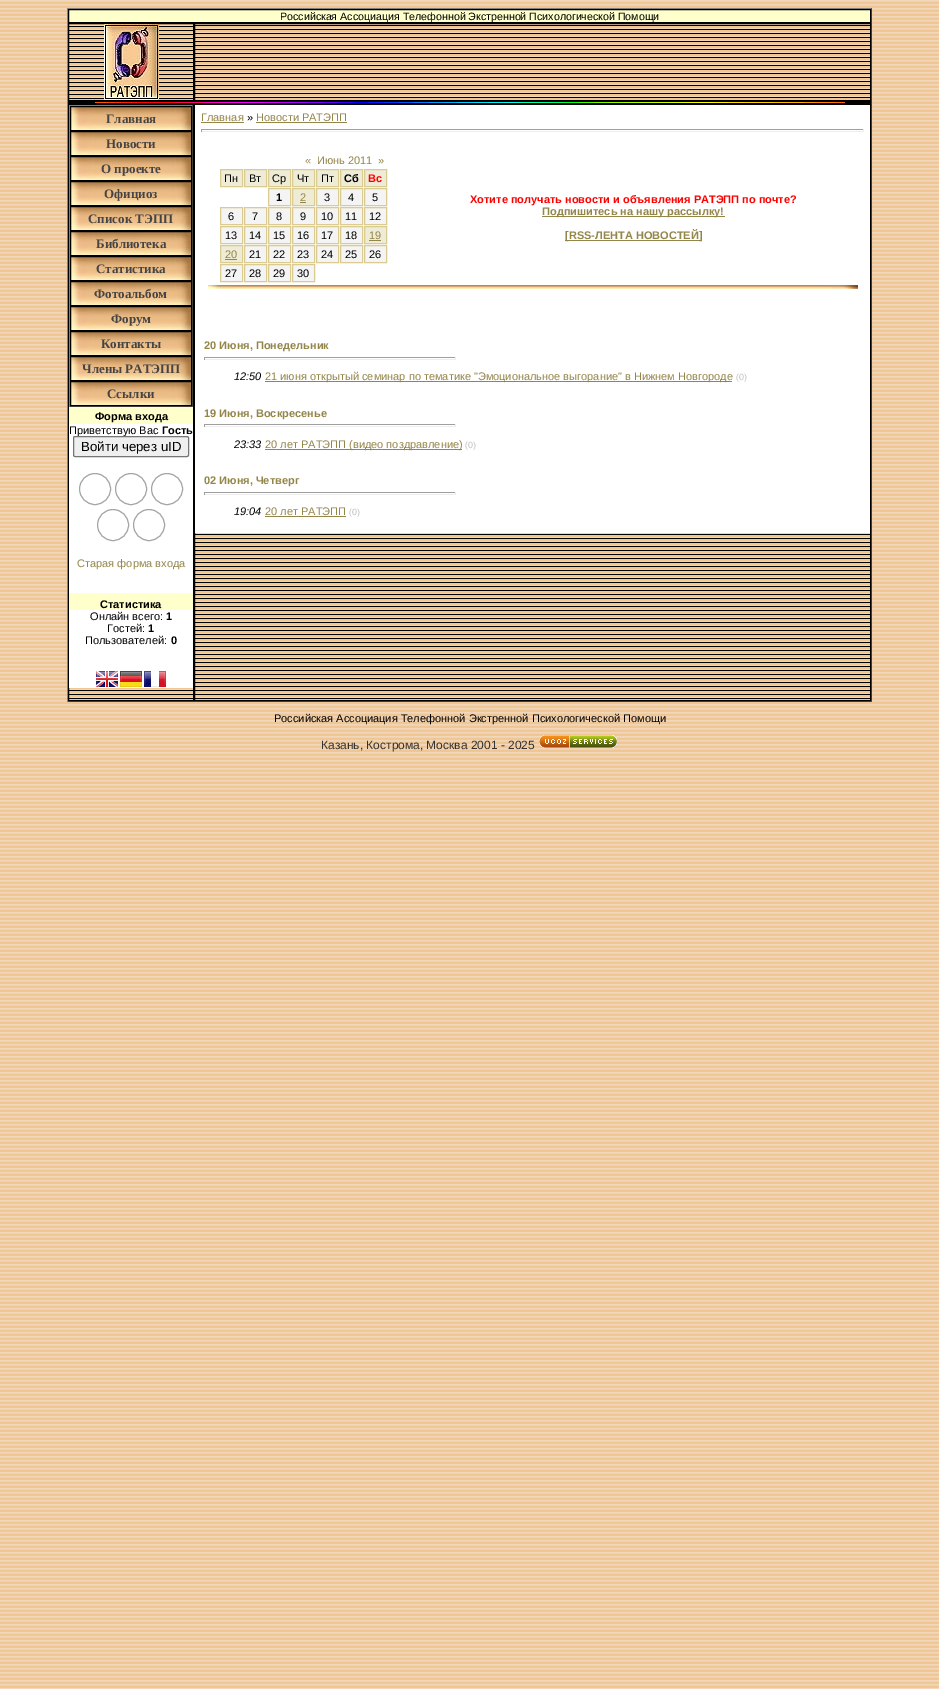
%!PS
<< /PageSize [939 1689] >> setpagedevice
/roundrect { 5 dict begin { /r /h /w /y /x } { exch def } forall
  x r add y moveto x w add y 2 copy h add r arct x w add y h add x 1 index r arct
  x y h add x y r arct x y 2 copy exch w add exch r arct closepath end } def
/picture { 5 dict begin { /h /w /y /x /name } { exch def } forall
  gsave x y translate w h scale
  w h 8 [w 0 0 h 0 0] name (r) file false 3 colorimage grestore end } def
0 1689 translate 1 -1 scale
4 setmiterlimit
1 setgray
0 0 939 1689 rectfill
(img1.rgb) 0 0 939 1689 picture
(img2.rgb) 69 24 801 676 picture
0.502 setgray
67 8 805 1 rectfill
0.333 setgray
871 8 1 694 rectfill
67 701 805 1 rectfill
0.502 setgray
67 8 1 694 rectfill
1 1 0.8 setrgbcolor
newpath 68.5 9.5 moveto 870.5 9.5 lineto 870.5 22.5 lineto 68.5 22.5 lineto closepath gsave fill grestore
0 setgray
stroke
/LiberationSans-Regular [10.65 0 0 -10.65 0 0] selectfont
280 20 moveto (Российская Ассоциация Телефонной Экстренной Психологической Помощи) show
68.5 23.5 125 77 rectstroke
(img3.rgb) 104 24 55 76 picture
(img4.rgb) 195 24 675 76 picture
194.5 23.5 676 77 rectstroke
68.5 101.5 802 2 rectstroke
(img5.rgb) 95 102 750 1 picture
68.5 104.5 125 596 rectstroke
0.502 setgray
69 105 124 1 rectfill
0.333 setgray
192 105 1 302 rectfill
69 406 124 1 rectfill
0.502 setgray
69 105 1 302 rectfill
(img6.rgb) 71 107 120 23 picture
0 setgray
70.5 106.5 121 24 rectstroke
/LiberationSerif-Bold [13 0 0 -13 0 0] selectfont
0.267 setgray
106 123 moveto (Главная) show
(img6.rgb) 71 132 120 23 picture
0 setgray
70.5 131.5 121 24 rectstroke
0.267 setgray
106 148 moveto (Новости) show
(img6.rgb) 71 157 120 23 picture
0 setgray
70.5 156.5 121 24 rectstroke
0.267 setgray
101 173 moveto (О проекте) show
(img6.rgb) 71 182 120 23 picture
0 setgray
70.5 181.5 121 24 rectstroke
0.267 setgray
104 198 moveto (Официоз) show
(img6.rgb) 71 207 120 23 picture
0 setgray
70.5 206.5 121 24 rectstroke
0.267 setgray
88 223 moveto (Список ТЭПП) show
(img6.rgb) 71 232 120 23 picture
0 setgray
70.5 231.5 121 24 rectstroke
0.267 setgray
96 248 moveto (Библиотека) show
(img6.rgb) 71 257 120 23 picture
0 setgray
70.5 256.5 121 24 rectstroke
0.267 setgray
96 273 moveto (Статистика) show
(img6.rgb) 71 282 120 23 picture
0 setgray
70.5 281.5 121 24 rectstroke
0.267 setgray
94 298 moveto (Фотоальбом) show
(img6.rgb) 71 307 120 23 picture
0 setgray
70.5 306.5 121 24 rectstroke
0.267 setgray
111 323 moveto (Форум) show
(img6.rgb) 71 332 120 23 picture
0 setgray
70.5 331.5 121 24 rectstroke
0.267 setgray
101 348 moveto (Контакты) show
(img6.rgb) 71 357 120 23 picture
0 setgray
70.5 356.5 121 24 rectstroke
0.267 setgray
82 373 moveto (Члены РАТЭПП) show
(img6.rgb) 71 382 120 23 picture
0 setgray
70.5 381.5 121 24 rectstroke
0.267 setgray
107 398 moveto (Ссылки) show
1 1 0.8 setrgbcolor
69 407 124 17 rectfill
/LiberationSans-Bold [11 0 0 -11 0 0] selectfont
0 setgray
95 420 moveto (Форма входа) show
1 setgray
69 424 124 169 rectfill
/LiberationSans-Regular [11 0 0 -11 0 0] selectfont
0 setgray
69 434 moveto (Приветствую Вас) show
/LiberationSans-Bold [11 0 0 -11 0 0] selectfont
162 434 moveto (Гость) show
0.937 setgray
73.5 436.5 115 20 1.5 roundrect gsave fill grestore
0.463 setgray
stroke
/LiberationSans-Regular [13.25 0 0 -13.25 0 0] selectfont
0 setgray
81 451 moveto (Войти через uID) show
0.647 setgray
newpath 95 489 15.5 0 360 arc closepath stroke
newpath 131 489 15.5 0 360 arc closepath stroke
newpath 167 489 15.5 0 360 arc closepath stroke
newpath 113 525 15.5 0 360 arc closepath stroke
newpath 149 525 15.5 0 360 arc closepath stroke
/LiberationSans-Regular [11 0 0 -11 0 0] selectfont
0.58 0.522 0.286 setrgbcolor
77 567 moveto (Старая форма входа) show
1 1 0.8 setrgbcolor
69 593 124 17 rectfill
/LiberationSans-Bold [11 0 0 -11 0 0] selectfont
0 setgray
100 608 moveto (Статистика) show
1 setgray
69 610 124 78 rectfill
/LiberationSans-Regular [11 0 0 -11 0 0] selectfont
0 setgray
90 620 moveto (Онлайн всего:) show
/LiberationSans-Bold [11 0 0 -11 0 0] selectfont
166 620 moveto (1) show
/LiberationSans-Regular [11 0 0 -11 0 0] selectfont
107 632 moveto (Гостей:) show
/LiberationSans-Bold [11 0 0 -11 0 0] selectfont
148 632 moveto (1) show
/LiberationSans-Regular [11 0 0 -11 0 0] selectfont
85 644 moveto (Пользователей:) show
/LiberationSans-Bold [11 0 0 -11 0 0] selectfont
171 644 moveto (0) show
(img7.rgb) 96 671 22 16 picture
(img8.rgb) 120 671 22 16 picture
(img9.rgb) 144 671 22 16 picture
194.5 104.5 676 596 rectstroke
1 setgray
195 105 675 428 rectfill
/LiberationSans-Regular [11 0 0 -11 0 0] selectfont
0.58 0.522 0.286 setrgbcolor
201 121 moveto (Главная) show
201 122 43 1 rectfill
0 setgray
247 121 moveto (») show
0.58 0.522 0.286 setrgbcolor
256 121 moveto (Новости РАТЭПП) show
256 122 91 1 rectfill
0.624 setgray
201 129 663 1 rectfill
0.933 setgray
863 129 1 3 rectfill
201 131 663 1 rectfill
0.624 setgray
201 129 1 3 rectfill
0.58 0.522 0.286 setrgbcolor
305 164 moveto («) show
317 164 moveto (Июнь 2011) show
378 164 moveto (») show
0.933 0.925 0.843 setrgbcolor
newpath 220.5 169.5 moveto 242.5 169.5 lineto 242.5 186.5 lineto 220.5 186.5 lineto closepath gsave fill grestore
0.855 0.796 0.565 setrgbcolor
stroke
0 setgray
224 182 moveto (Пн) show
0.933 0.925 0.843 setrgbcolor
newpath 244.5 169.5 moveto 266.5 169.5 lineto 266.5 186.5 lineto 244.5 186.5 lineto closepath gsave fill grestore
0.855 0.796 0.565 setrgbcolor
stroke
0 setgray
249 182 moveto (Вт) show
0.933 0.925 0.843 setrgbcolor
newpath 268.5 169.5 moveto 290.5 169.5 lineto 290.5 186.5 lineto 268.5 186.5 lineto closepath gsave fill grestore
0.855 0.796 0.565 setrgbcolor
stroke
0 setgray
272 182 moveto (Ср) show
0.933 0.925 0.843 setrgbcolor
newpath 292.5 169.5 moveto 314.5 169.5 lineto 314.5 186.5 lineto 292.5 186.5 lineto closepath gsave fill grestore
0.855 0.796 0.565 setrgbcolor
stroke
0 setgray
297 182 moveto (Чт) show
0.933 0.925 0.843 setrgbcolor
newpath 316.5 169.5 moveto 338.5 169.5 lineto 338.5 186.5 lineto 316.5 186.5 lineto closepath gsave fill grestore
0.855 0.796 0.565 setrgbcolor
stroke
0 setgray
321 182 moveto (Пт) show
0.933 0.925 0.843 setrgbcolor
newpath 340.5 169.5 moveto 362.5 169.5 lineto 362.5 186.5 lineto 340.5 186.5 lineto closepath gsave fill grestore
0.855 0.796 0.565 setrgbcolor
stroke
/LiberationSans-Bold [11 0 0 -11 0 0] selectfont
0 setgray
344 182 moveto (Сб) show
0.933 0.925 0.843 setrgbcolor
newpath 364.5 169.5 moveto 386.5 169.5 lineto 386.5 186.5 lineto 364.5 186.5 lineto closepath gsave fill grestore
0.855 0.796 0.565 setrgbcolor
stroke
1 0 0 setrgbcolor
368 182 moveto (Вс) show
0.957 setgray
newpath 268.5 188.5 moveto 290.5 188.5 lineto 290.5 205.5 lineto 268.5 205.5 lineto closepath gsave fill grestore
0.855 0.796 0.565 setrgbcolor
stroke
0 setgray
276 201 moveto (1) show
0.933 0.925 0.843 setrgbcolor
newpath 292.5 188.5 moveto 314.5 188.5 lineto 314.5 205.5 lineto 292.5 205.5 lineto closepath gsave fill grestore
0.855 0.796 0.565 setrgbcolor
stroke
/LiberationSans-Regular [11 0 0 -11 0 0] selectfont
0.58 0.522 0.286 setrgbcolor
300 201 moveto (2) show
300 202 6 1 rectfill
0.957 setgray
newpath 316.5 188.5 moveto 338.5 188.5 lineto 338.5 205.5 lineto 316.5 205.5 lineto closepath gsave fill grestore
0.855 0.796 0.565 setrgbcolor
stroke
0 setgray
324 201 moveto (3) show
0.957 setgray
newpath 340.5 188.5 moveto 362.5 188.5 lineto 362.5 205.5 lineto 340.5 205.5 lineto closepath gsave fill grestore
0.855 0.796 0.565 setrgbcolor
stroke
0 setgray
348 201 moveto (4) show
0.957 setgray
newpath 364.5 188.5 moveto 386.5 188.5 lineto 386.5 205.5 lineto 364.5 205.5 lineto closepath gsave fill grestore
0.855 0.796 0.565 setrgbcolor
stroke
0 setgray
372 201 moveto (5) show
0.957 setgray
newpath 220.5 207.5 moveto 242.5 207.5 lineto 242.5 224.5 lineto 220.5 224.5 lineto closepath gsave fill grestore
0.855 0.796 0.565 setrgbcolor
stroke
0 setgray
228 220 moveto (6) show
0.957 setgray
newpath 244.5 207.5 moveto 266.5 207.5 lineto 266.5 224.5 lineto 244.5 224.5 lineto closepath gsave fill grestore
0.855 0.796 0.565 setrgbcolor
stroke
0 setgray
252 220 moveto (7) show
0.957 setgray
newpath 268.5 207.5 moveto 290.5 207.5 lineto 290.5 224.5 lineto 268.5 224.5 lineto closepath gsave fill grestore
0.855 0.796 0.565 setrgbcolor
stroke
0 setgray
276 220 moveto (8) show
0.957 setgray
newpath 292.5 207.5 moveto 314.5 207.5 lineto 314.5 224.5 lineto 292.5 224.5 lineto closepath gsave fill grestore
0.855 0.796 0.565 setrgbcolor
stroke
0 setgray
300 220 moveto (9) show
0.957 setgray
newpath 316.5 207.5 moveto 338.5 207.5 lineto 338.5 224.5 lineto 316.5 224.5 lineto closepath gsave fill grestore
0.855 0.796 0.565 setrgbcolor
stroke
0 setgray
321 220 moveto (10) show
0.957 setgray
newpath 340.5 207.5 moveto 362.5 207.5 lineto 362.5 224.5 lineto 340.5 224.5 lineto closepath gsave fill grestore
0.855 0.796 0.565 setrgbcolor
stroke
0 setgray
345 220 moveto (11) show
0.957 setgray
newpath 364.5 207.5 moveto 386.5 207.5 lineto 386.5 224.5 lineto 364.5 224.5 lineto closepath gsave fill grestore
0.855 0.796 0.565 setrgbcolor
stroke
0 setgray
369 220 moveto (12) show
0.957 setgray
newpath 220.5 226.5 moveto 242.5 226.5 lineto 242.5 243.5 lineto 220.5 243.5 lineto closepath gsave fill grestore
0.855 0.796 0.565 setrgbcolor
stroke
0 setgray
225 239 moveto (13) show
0.957 setgray
newpath 244.5 226.5 moveto 266.5 226.5 lineto 266.5 243.5 lineto 244.5 243.5 lineto closepath gsave fill grestore
0.855 0.796 0.565 setrgbcolor
stroke
0 setgray
249 239 moveto (14) show
0.957 setgray
newpath 268.5 226.5 moveto 290.5 226.5 lineto 290.5 243.5 lineto 268.5 243.5 lineto closepath gsave fill grestore
0.855 0.796 0.565 setrgbcolor
stroke
0 setgray
273 239 moveto (15) show
0.957 setgray
newpath 292.5 226.5 moveto 314.5 226.5 lineto 314.5 243.5 lineto 292.5 243.5 lineto closepath gsave fill grestore
0.855 0.796 0.565 setrgbcolor
stroke
0 setgray
297 239 moveto (16) show
0.957 setgray
newpath 316.5 226.5 moveto 338.5 226.5 lineto 338.5 243.5 lineto 316.5 243.5 lineto closepath gsave fill grestore
0.855 0.796 0.565 setrgbcolor
stroke
0 setgray
321 239 moveto (17) show
0.957 setgray
newpath 340.5 226.5 moveto 362.5 226.5 lineto 362.5 243.5 lineto 340.5 243.5 lineto closepath gsave fill grestore
0.855 0.796 0.565 setrgbcolor
stroke
0 setgray
345 239 moveto (18) show
0.933 0.925 0.843 setrgbcolor
newpath 364.5 226.5 moveto 386.5 226.5 lineto 386.5 243.5 lineto 364.5 243.5 lineto closepath gsave fill grestore
0.855 0.796 0.565 setrgbcolor
stroke
0.58 0.522 0.286 setrgbcolor
369 239 moveto (19) show
369 240 12 1 rectfill
0.933 0.925 0.843 setrgbcolor
newpath 220.5 245.5 moveto 242.5 245.5 lineto 242.5 262.5 lineto 220.5 262.5 lineto closepath gsave fill grestore
0.855 0.796 0.565 setrgbcolor
stroke
0.58 0.522 0.286 setrgbcolor
225 258 moveto (20) show
225 259 12 1 rectfill
0.957 setgray
newpath 244.5 245.5 moveto 266.5 245.5 lineto 266.5 262.5 lineto 244.5 262.5 lineto closepath gsave fill grestore
0.855 0.796 0.565 setrgbcolor
stroke
0 setgray
249 258 moveto (21) show
0.957 setgray
newpath 268.5 245.5 moveto 290.5 245.5 lineto 290.5 262.5 lineto 268.5 262.5 lineto closepath gsave fill grestore
0.855 0.796 0.565 setrgbcolor
stroke
0 setgray
273 258 moveto (22) show
0.957 setgray
newpath 292.5 245.5 moveto 314.5 245.5 lineto 314.5 262.5 lineto 292.5 262.5 lineto closepath gsave fill grestore
0.855 0.796 0.565 setrgbcolor
stroke
0 setgray
297 258 moveto (23) show
0.957 setgray
newpath 316.5 245.5 moveto 338.5 245.5 lineto 338.5 262.5 lineto 316.5 262.5 lineto closepath gsave fill grestore
0.855 0.796 0.565 setrgbcolor
stroke
0 setgray
321 258 moveto (24) show
0.957 setgray
newpath 340.5 245.5 moveto 362.5 245.5 lineto 362.5 262.5 lineto 340.5 262.5 lineto closepath gsave fill grestore
0.855 0.796 0.565 setrgbcolor
stroke
0 setgray
345 258 moveto (25) show
0.957 setgray
newpath 364.5 245.5 moveto 386.5 245.5 lineto 386.5 262.5 lineto 364.5 262.5 lineto closepath gsave fill grestore
0.855 0.796 0.565 setrgbcolor
stroke
0 setgray
369 258 moveto (26) show
0.957 setgray
newpath 220.5 264.5 moveto 242.5 264.5 lineto 242.5 281.5 lineto 220.5 281.5 lineto closepath gsave fill grestore
0.855 0.796 0.565 setrgbcolor
stroke
0 setgray
225 277 moveto (27) show
0.957 setgray
newpath 244.5 264.5 moveto 266.5 264.5 lineto 266.5 281.5 lineto 244.5 281.5 lineto closepath gsave fill grestore
0.855 0.796 0.565 setrgbcolor
stroke
0 setgray
249 277 moveto (28) show
0.957 setgray
newpath 268.5 264.5 moveto 290.5 264.5 lineto 290.5 281.5 lineto 268.5 281.5 lineto closepath gsave fill grestore
0.855 0.796 0.565 setrgbcolor
stroke
0 setgray
273 277 moveto (29) show
0.957 setgray
newpath 292.5 264.5 moveto 314.5 264.5 lineto 314.5 281.5 lineto 292.5 281.5 lineto closepath gsave fill grestore
0.855 0.796 0.565 setrgbcolor
stroke
0 setgray
297 277 moveto (30) show
/LiberationSans-Bold [11 0 0 -11 0 0] selectfont
1 0 0 setrgbcolor
470 203 moveto (Хотите получать новости и объявления РАТЭПП по почте?) show
0.58 0.522 0.286 setrgbcolor
542 216 183 1 rectfill
542 215 moveto (Подпишитесь на нашу рассылку!) show
565 240 137 1 rectfill
565 239 moveto ([RSS-ЛЕНТА НОВОСТЕЙ]) show
(img10.rgb) 208 285 650 4 picture
204 349 moveto (20 Июня, Понедельник) show
0.624 setgray
204 357 252 1 rectfill
0.933 setgray
455 357 1 3 rectfill
204 359 252 1 rectfill
0.624 setgray
204 357 1 3 rectfill
/LiberationSans-Italic [11 0 0 -11 0 0] selectfont
0 setgray
234 380 moveto (12:50) show
0.58 0.522 0.286 setrgbcolor
265 381 467 1 rectfill
/LiberationSans-Regular [11 0 0 -11 0 0] selectfont
265 380 moveto (21 июня открытый семинар по тематике "Эмоциональное выгорание" в Нижнем Новгороде) show
/LiberationSans-Regular [9 0 0 -9 0 0] selectfont
0.765 setgray
736 380 moveto (\(0\)) show
/LiberationSans-Bold [11 0 0 -11 0 0] selectfont
0.58 0.522 0.286 setrgbcolor
204 417 moveto (19 Июня, Воскресенье) show
0.624 setgray
204 424 252 1 rectfill
0.933 setgray
455 424 1 3 rectfill
204 426 252 1 rectfill
0.624 setgray
204 424 1 3 rectfill
/LiberationSans-Italic [11 0 0 -11 0 0] selectfont
0 setgray
234 448 moveto (23:33) show
0.58 0.522 0.286 setrgbcolor
265 449 197 1 rectfill
/LiberationSans-Regular [11 0 0 -11 0 0] selectfont
265 448 moveto (20 лет РАТЭПП \(видео поздравление\)) show
/LiberationSans-Regular [9 0 0 -9 0 0] selectfont
0.765 setgray
465 448 moveto (\(0\)) show
/LiberationSans-Bold [11 0 0 -11 0 0] selectfont
0.58 0.522 0.286 setrgbcolor
204 484 moveto (02 Июня, Четверг) show
0.624 setgray
204 492 252 1 rectfill
0.933 setgray
455 492 1 3 rectfill
204 494 252 1 rectfill
0.624 setgray
204 492 1 3 rectfill
/LiberationSans-Italic [11 0 0 -11 0 0] selectfont
0 setgray
234 515 moveto (19:04) show
/LiberationSans-Regular [11 0 0 -11 0 0] selectfont
0.58 0.522 0.286 setrgbcolor
265 515 moveto (20 лет РАТЭПП) show
265 516 81 1 rectfill
/LiberationSans-Regular [9 0 0 -9 0 0] selectfont
0.765 setgray
349 515 moveto (\(0\)) show
/LiberationSans-Regular [11 0 0 -11 0 0] selectfont
0 setgray
274 722 moveto (Российская Ассоциация Телефонной Экстренной Психологической Помощи) show
/LiberationSans-Regular [12 0 0 -12 0 0] selectfont
0.2 setgray
321 749 moveto (Казань, Кострома, Москва 2001 - 2025) show
(img11.rgb) 539 735 78 13 picture
showpage
